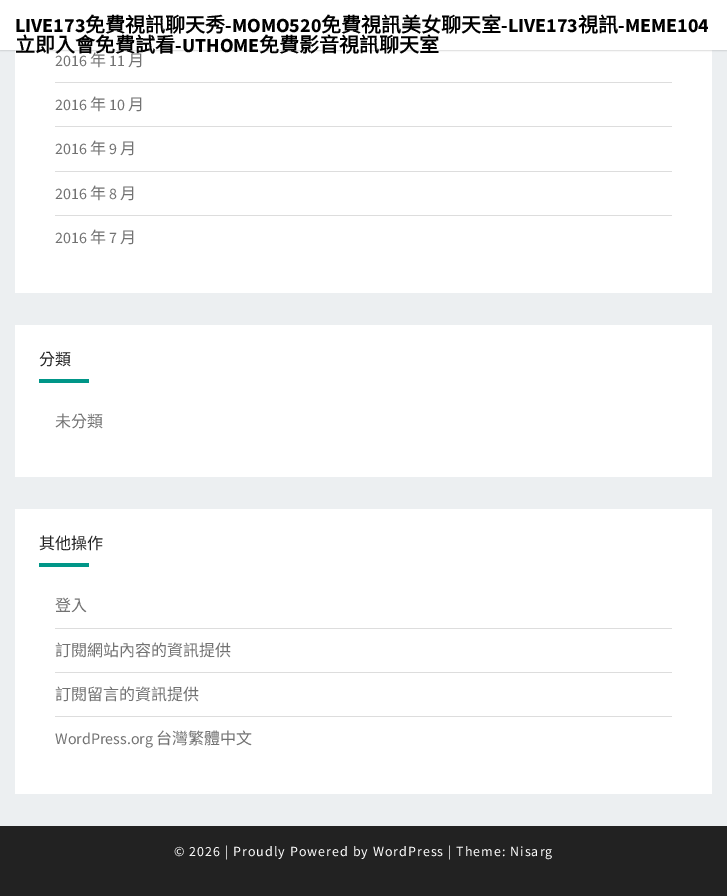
%!PS
<< /PageSize [727 896] /PageUsesTransparency true >> setpagedevice
/alpha { dup .setfillconstantalpha .setstrokeconstantalpha } def
/roundrect { 5 dict begin { /r /h /w /y /x } { exch def } forall
  x r add y moveto x w add y 2 copy h add r arct x w add y h add x 1 index r arct
  x y h add x y r arct x y 2 copy exch w add exch r arct closepath end } def
/shadow { 12 dict begin { /a /b /q /h /w /y /x } { exch def } forall gsave /was 0 def
  9 -2 -9 { dup b mul 4 div /e exch def 1 sub .425 mul 2.718 exch exp 1 add a .99 .min exch div /now exch def
    1 1 now sub 1 was sub div sub alpha /was now def
    w h .min e 2 mul add 0 gt { x e sub y e sub w e 2 mul add h e 2 mul add
      q e add b .6 mul add w h .min 2 div e add .min 0 .max roundrect fill } if } for grestore end } def
0 .pushpdf14devicefilter
0 896 translate 1 -1 scale
4 setmiterlimit
0.925 0.937 0.945 setrgbcolor
0 0 727 896 rectfill
1 setgray
15 50 697 243 rectfill
0.392 setgray
0 1 727 50 0 0.5 0.2 shadow
1 setgray
0 0 727 50 rectfill
/SourceSansPro-Bold [20 0 0 -20 0 0] selectfont
0 setgray
15 32 moveto (LIVE173) show
/NotoSansCJKTC-Bold [20 0 0 -20 0 0] selectfont
85 32 moveto (免費視訊聊天秀) show
/SourceSansPro-Bold [20 0 0 -20 0 0] selectfont
225 32 moveto (-MOMO520) show
/NotoSansCJKTC-Bold [20 0 0 -20 0 0] selectfont
321 32 moveto (免費視訊美女聊天室) show
/SourceSansPro-Bold [20 0 0 -20 0 0] selectfont
501 32 moveto (-LIVE173) show
/NotoSansCJKTC-Bold [20 0 0 -20 0 0] selectfont
578 32 moveto (視訊) show
/SourceSansPro-Bold [20 0 0 -20 0 0] selectfont
618 32 moveto (-MEME104) show
/NotoSansCJKTC-Bold [20 0 0 -20 0 0] selectfont
15 52 moveto (立即入會免費試看) show
/SourceSansPro-Bold [20 0 0 -20 0 0] selectfont
175 52 moveto (-UTHOME) show
/NotoSansCJKTC-Bold [20 0 0 -20 0 0] selectfont
259 52 moveto (免費影音視訊聊天室) show
0.867 setgray
55 82 617 1 rectfill
/SourceSansPro-Regular [16 0 0 -16 0 0] selectfont
0.447 setgray
55 66 moveto (2016) show
/NotoSansCJKTC-Regular [16 0 0 -16 0 0] selectfont
90 66 moveto (年) show
/SourceSansPro-Regular [16 0 0 -16 0 0] selectfont
109 66 moveto (11) show
/NotoSansCJKTC-Regular [16 0 0 -16 0 0] selectfont
128 66 moveto (月) show
0.867 setgray
55 126 617 1 rectfill
/SourceSansPro-Regular [16 0 0 -16 0 0] selectfont
0.447 setgray
55 110 moveto (2016) show
/NotoSansCJKTC-Regular [16 0 0 -16 0 0] selectfont
90 110 moveto (年) show
/SourceSansPro-Regular [16 0 0 -16 0 0] selectfont
109 110 moveto (10) show
/NotoSansCJKTC-Regular [16 0 0 -16 0 0] selectfont
128 110 moveto (月) show
0.867 setgray
55 171 617 1 rectfill
/SourceSansPro-Regular [16 0 0 -16 0 0] selectfont
0.447 setgray
55 154 moveto (2016) show
/NotoSansCJKTC-Regular [16 0 0 -16 0 0] selectfont
90 154 moveto (年) show
/SourceSansPro-Regular [16 0 0 -16 0 0] selectfont
109 154 moveto (9) show
/NotoSansCJKTC-Regular [16 0 0 -16 0 0] selectfont
120 154 moveto (月) show
0.867 setgray
55 215 617 1 rectfill
/SourceSansPro-Regular [16 0 0 -16 0 0] selectfont
0.447 setgray
55 199 moveto (2016) show
/NotoSansCJKTC-Regular [16 0 0 -16 0 0] selectfont
90 199 moveto (年) show
/SourceSansPro-Regular [16 0 0 -16 0 0] selectfont
109 199 moveto (8) show
/NotoSansCJKTC-Regular [16 0 0 -16 0 0] selectfont
120 199 moveto (月) show
/SourceSansPro-Regular [16 0 0 -16 0 0] selectfont
55 243 moveto (2016) show
/NotoSansCJKTC-Regular [16 0 0 -16 0 0] selectfont
90 243 moveto (年) show
/SourceSansPro-Regular [16 0 0 -16 0 0] selectfont
109 243 moveto (7) show
/NotoSansCJKTC-Regular [16 0 0 -16 0 0] selectfont
120 243 moveto (月) show
1 setgray
15 325 697 152 rectfill
0.129 setgray
39 365 moveto (分類) show
0 0.588 0.533 setrgbcolor
39 379 50 4 rectfill
0.447 setgray
55 427 moveto (未分類) show
1 setgray
15 509 697 285 rectfill
0.129 setgray
39 549 moveto (其他操作) show
0 0.588 0.533 setrgbcolor
39 563 50 4 rectfill
0.867 setgray
55 628 617 1 rectfill
0.447 setgray
55 611 moveto (登入) show
0.867 setgray
55 672 617 1 rectfill
0.447 setgray
55 656 moveto (訂閱網站內容的資訊提供) show
0.867 setgray
55 716 617 1 rectfill
0.447 setgray
55 700 moveto (訂閱留言的資訊提供) show
/SourceSansPro-Regular [16 0 0 -16 0 0] selectfont
55 744 moveto (WordPress.org) show
/NotoSansCJKTC-Regular [16 0 0 -16 0 0] selectfont
156 744 moveto (台灣繁體中文) show
0.133 setgray
0 826 727 70 rectfill
/SourceSansPro-Regular [14 0 0 -14 0 0] selectfont
1 setgray
174 856 moveto 1 0 (© 2026 | Proudly Powered by WordPress | Theme: Nisarg) ashow
.poppdf14devicefilter showpage
